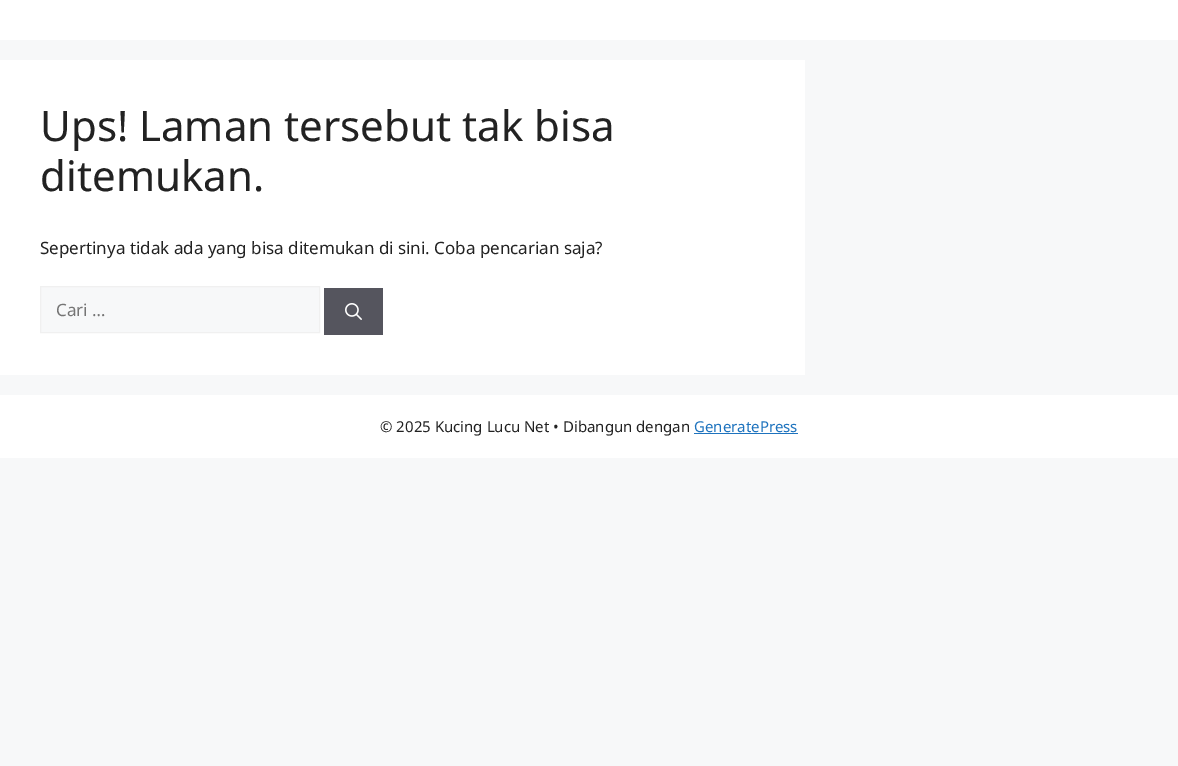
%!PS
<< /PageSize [1178 766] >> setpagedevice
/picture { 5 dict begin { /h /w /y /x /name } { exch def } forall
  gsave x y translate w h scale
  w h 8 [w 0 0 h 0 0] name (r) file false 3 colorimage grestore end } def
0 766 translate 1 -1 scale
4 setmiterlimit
0.969 0.973 0.976 setrgbcolor
0 0 1178 766 rectfill
1 setgray
0 0 1178 40 rectfill
0 60 805 315 rectfill
/NotoSans-Regular [42 0 0 -42 0 0] selectfont
0.133 setgray
40 141 moveto (Ups! Laman tersebut tak bisa) show
40 191 moveto (ditemukan.) show
/NotoSans-Regular [17 0 0 -17 0 0] selectfont
40 254 moveto (Sepertinya tidak ada yang bisa ditemukan di sini. Coba pencarian saja?) show
0.969 0.973 0.976 setrgbcolor
newpath 40.5 286.5 moveto 319.5 286.5 lineto 319.5 332.5 lineto 40.5 332.5 lineto closepath gsave fill grestore
0.941 setgray
stroke
0.459 setgray
56 316 moveto (Cari …) show
0.333 0.333 0.369 setrgbcolor
324 288 59 47 rectfill
(img1.rgb) 345 303 17 17 picture
1 setgray
0 395 1178 63 rectfill
/NotoSans-Regular [15 0 0 -15 0 0] selectfont
0.133 setgray
380 432 moveto (© 2025 Kucing Lucu Net • Dibangun dengan) show
0.118 0.451 0.745 setrgbcolor
694 432 moveto (GeneratePress) show
694 433 104 1 rectfill
showpage
